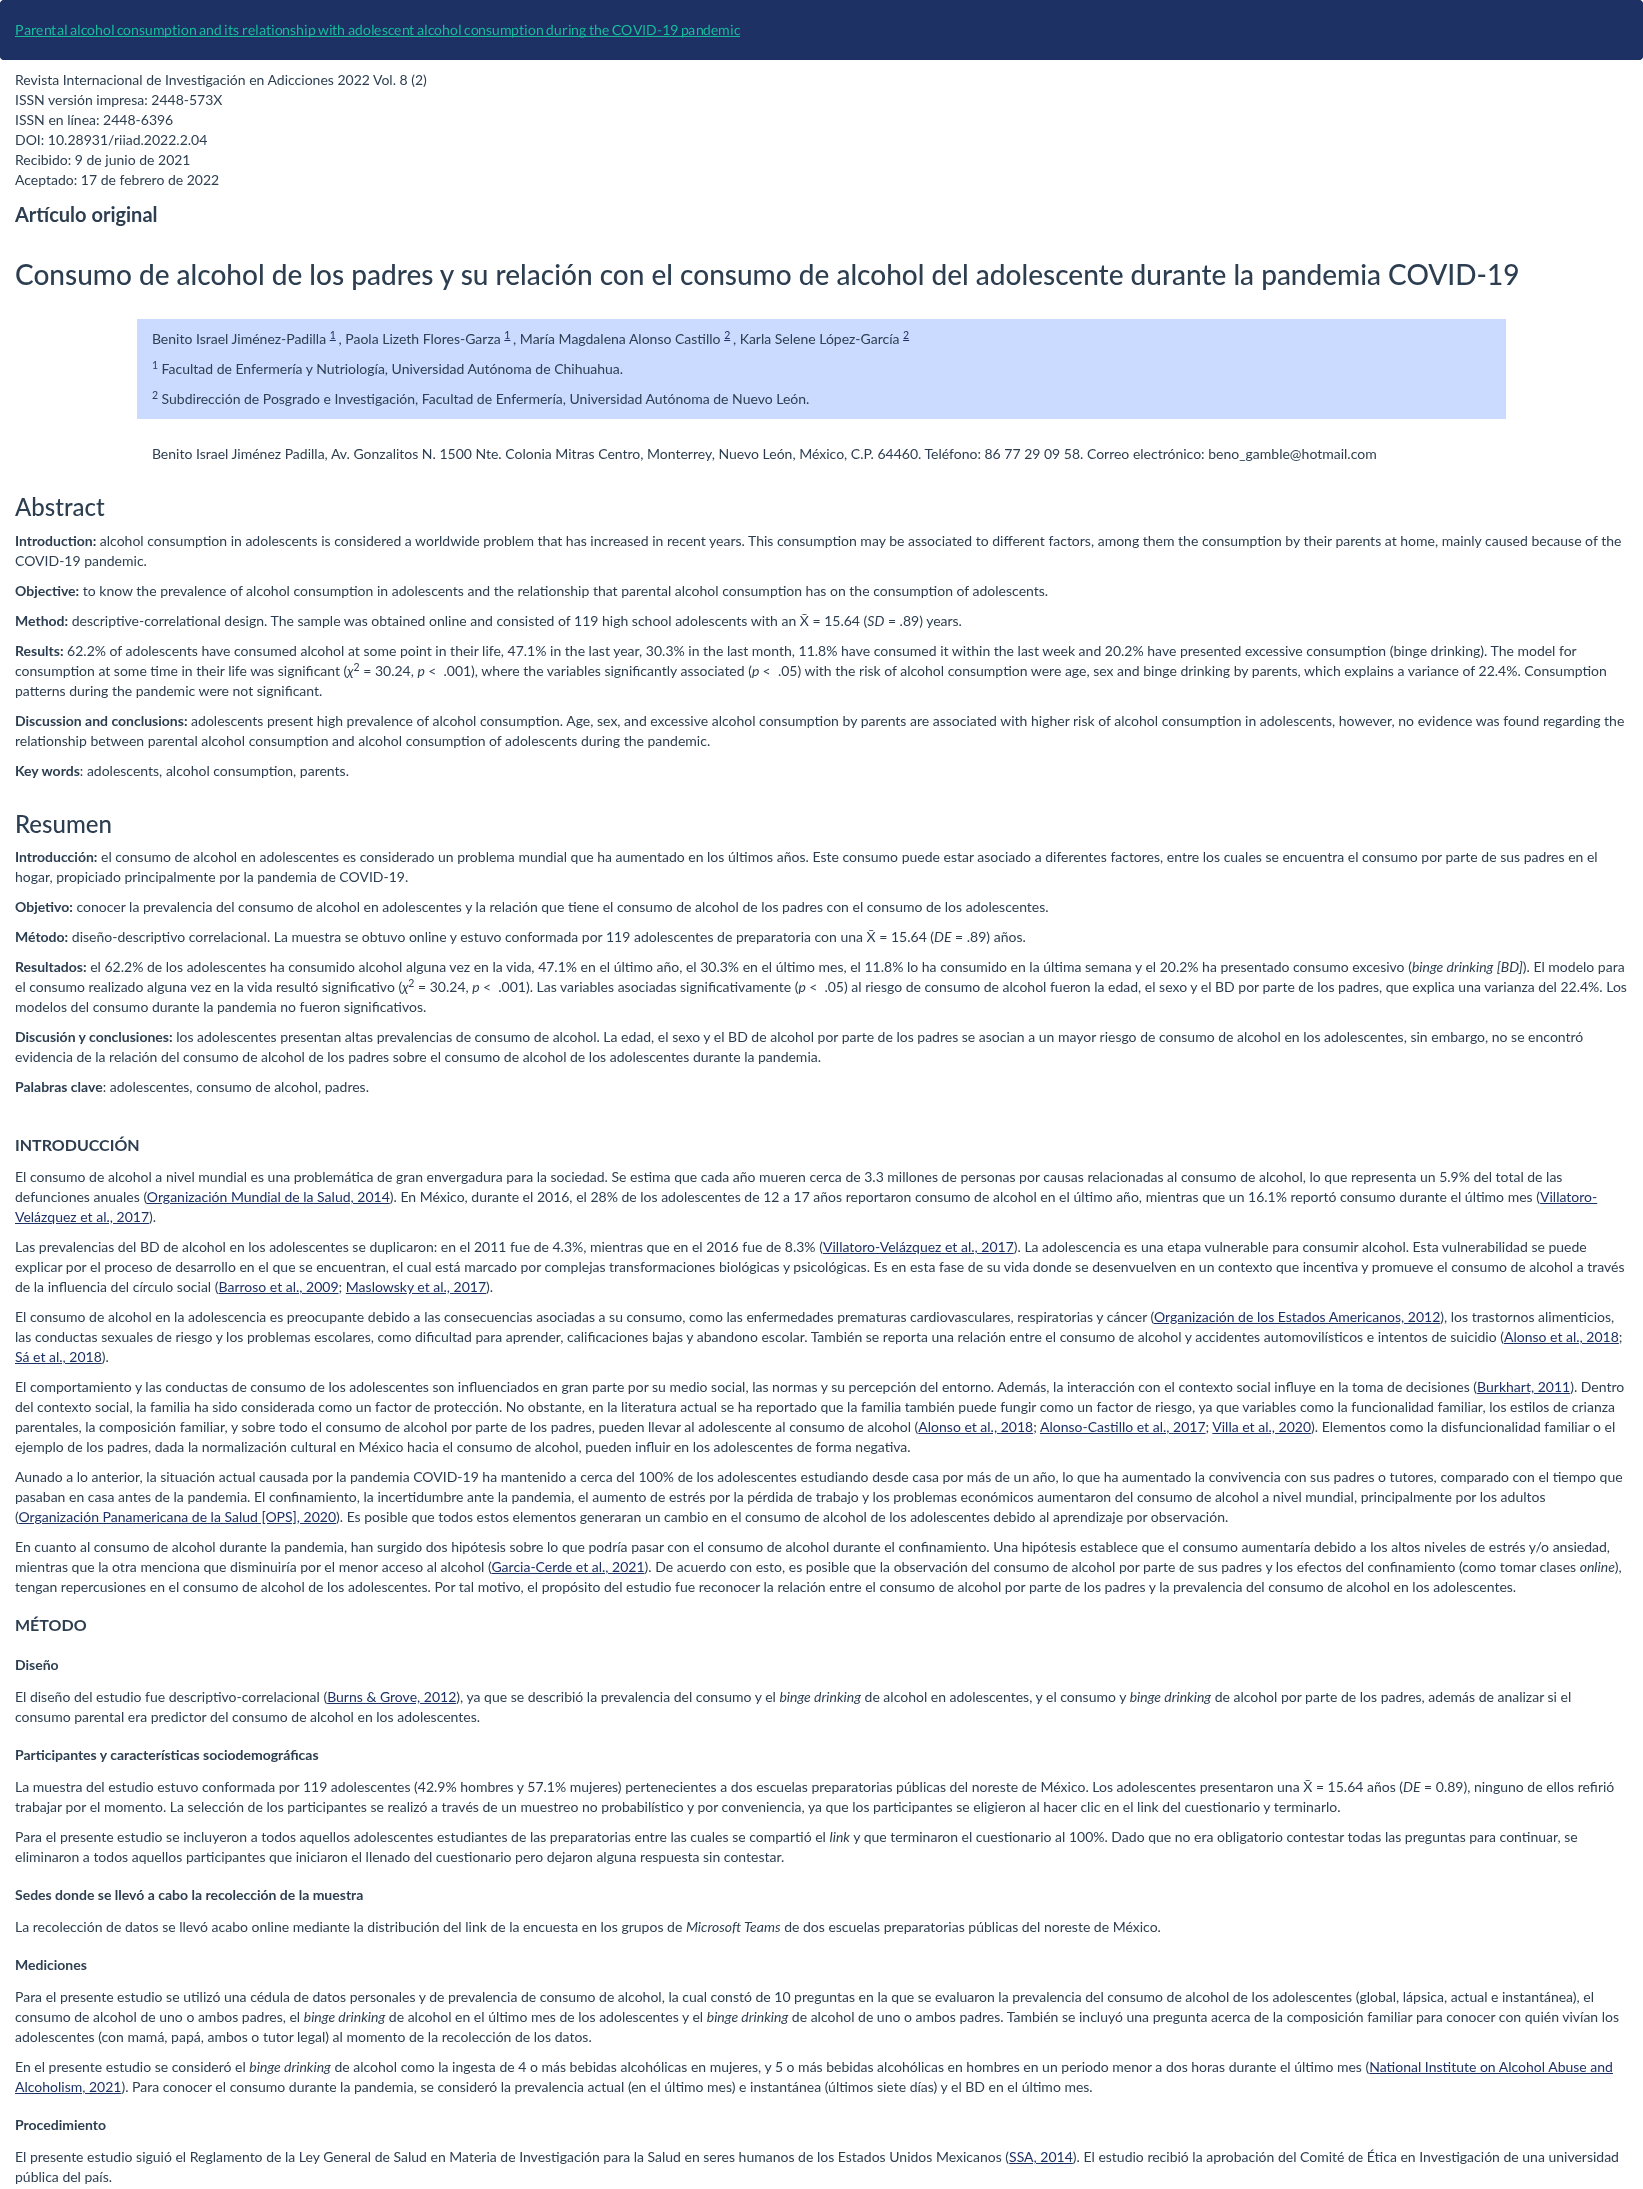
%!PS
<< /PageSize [1643 2189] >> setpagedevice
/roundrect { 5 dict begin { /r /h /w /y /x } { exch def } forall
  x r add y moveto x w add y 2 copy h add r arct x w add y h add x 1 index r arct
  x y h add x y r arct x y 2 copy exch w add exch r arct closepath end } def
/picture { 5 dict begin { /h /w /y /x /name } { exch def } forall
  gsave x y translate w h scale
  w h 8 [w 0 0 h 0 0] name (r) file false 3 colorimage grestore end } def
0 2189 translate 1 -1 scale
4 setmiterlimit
1 setgray
0 0 1643 2189 rectfill
0.114 0.192 0.392 setrgbcolor
0 0 1643 60 4 roundrect fill
0.094 0.737 0.612 setrgbcolor
15 36 725 1 rectfill
/Lato-Regular [14 0 0 -14 0 0] selectfont
15 35 moveto (Parental alcohol consumption and its relationship with adolescent alcohol consumption during the COVID-19 pandemic) show
(img1.rgb) 15 74 1612 2110 picture
showpage
